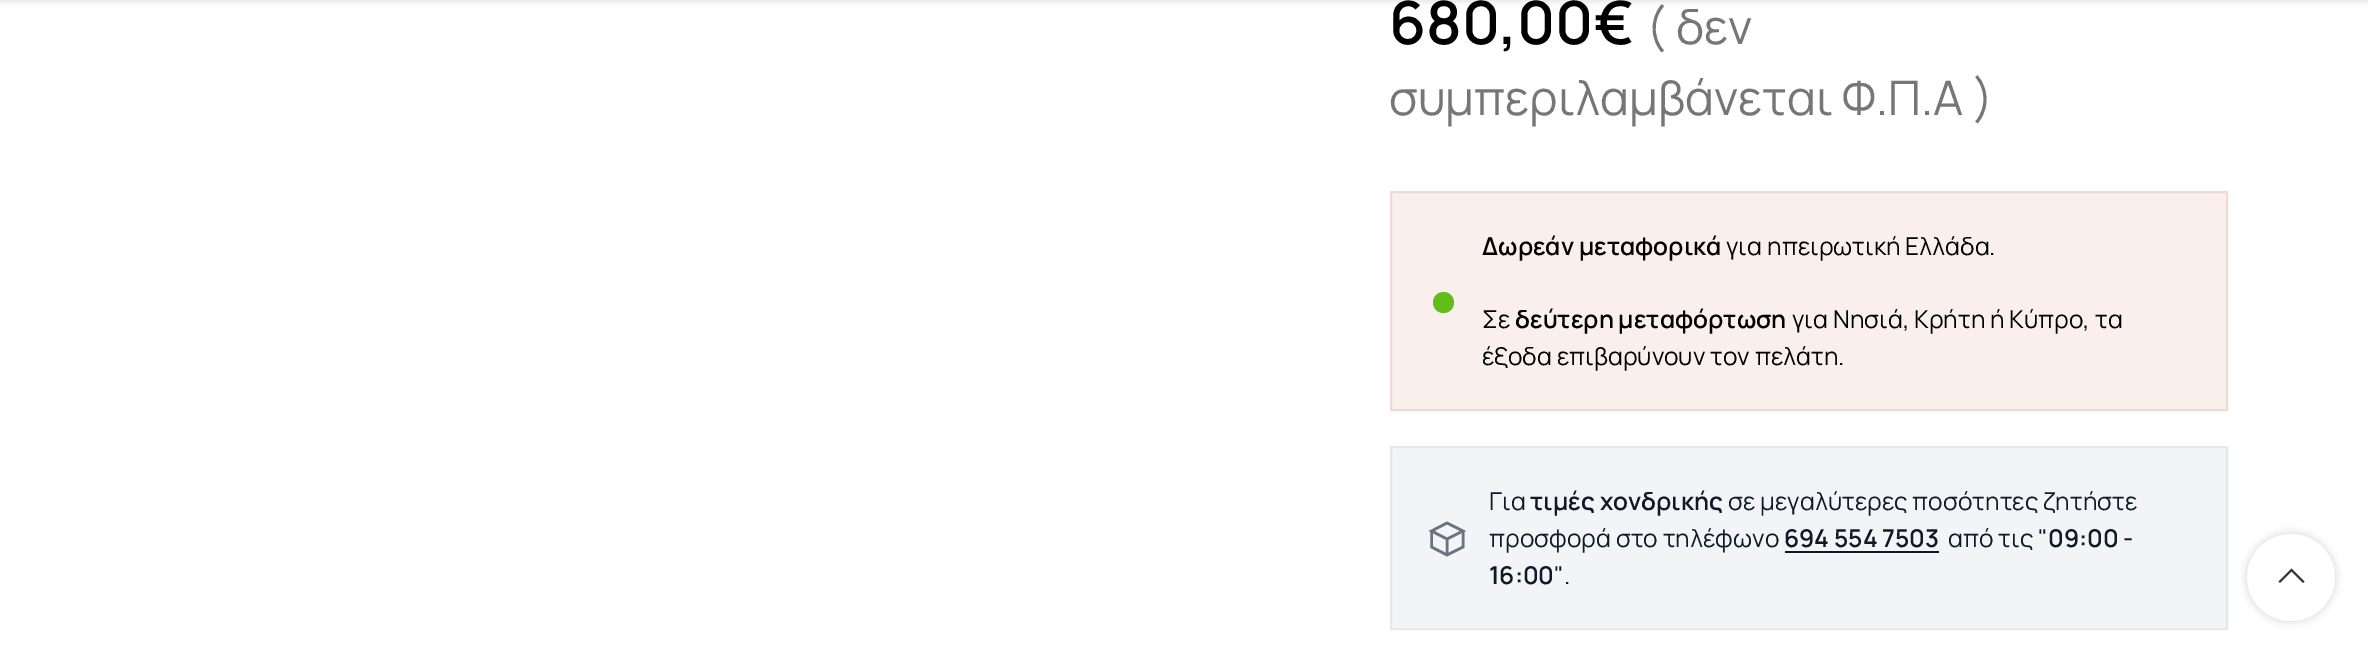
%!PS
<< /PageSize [2368 655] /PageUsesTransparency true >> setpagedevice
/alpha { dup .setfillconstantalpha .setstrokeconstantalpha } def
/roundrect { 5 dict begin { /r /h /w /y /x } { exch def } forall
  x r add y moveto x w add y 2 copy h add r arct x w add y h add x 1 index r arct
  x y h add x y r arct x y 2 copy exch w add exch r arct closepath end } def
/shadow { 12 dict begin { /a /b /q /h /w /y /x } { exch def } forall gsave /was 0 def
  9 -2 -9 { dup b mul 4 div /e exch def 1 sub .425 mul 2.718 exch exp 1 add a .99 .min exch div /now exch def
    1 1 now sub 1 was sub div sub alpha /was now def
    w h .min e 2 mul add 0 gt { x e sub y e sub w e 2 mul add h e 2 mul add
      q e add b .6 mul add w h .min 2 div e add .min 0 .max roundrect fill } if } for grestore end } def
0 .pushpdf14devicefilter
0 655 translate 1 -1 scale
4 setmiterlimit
1 setgray
0 0 2368 655 rectfill
0 setgray
0 -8 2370 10 0 2.5 0.1 shadow
/Manrope-SemiBold [59.5 0 0 -59.5 0 0] selectfont
1389 44 moveto (680,00€) show
/Manrope-Regular [47.6 0 0 -47.6 0 0] selectfont
0.463 setgray
1646 44 moveto (\( δεν) show
1389 115 moveto (συμπεριλαμβάνεται Φ.Π.Α \)) show
0.976 0.941 0.929 setrgbcolor
newpath 1391 192 moveto 2227 192 lineto 2227 410 lineto 1391 410 lineto closepath gsave fill grestore
0.937 0.851 0.824 setrgbcolor
2 setlinewidth
stroke
0.384 0.741 0.098 setrgbcolor
newpath 1443.5 302.5 10.5 0 360 arc closepath fill
/Manrope-SemiBold [24.5 0 0 -24.5 0 0] selectfont
0 setgray
1482 255 moveto (Δωρεάν μεταφορικά) show
/Manrope-Regular [24.5 0 0 -24.5 0 0] selectfont
1726 255 moveto (για ηπειρωτική Ελλάδα.) show
1482 328 moveto (Σε) show
/Manrope-SemiBold [24.5 0 0 -24.5 0 0] selectfont
1515 328 moveto (δεύτερη μεταφόρτωση) show
/Manrope-Regular [24.5 0 0 -24.5 0 0] selectfont
1792 328 moveto (για Νησιά, Κρήτη ή Κύπρο, τα) show
1482 365 moveto (έξοδα επιβαρύνουν τον πελάτη.) show
0.953 0.957 0.965 setrgbcolor
newpath 1391 447 moveto 2227 447 lineto 2227 629 lineto 1391 629 lineto closepath gsave fill grestore
0.898 0.906 0.922 setrgbcolor
stroke
0.42 0.447 0.502 setrgbcolor
2.6 setlinewidth
newpath 1431.5 531 moveto 1447 523 lineto 1463 531 lineto 1447 539 lineto closepath 1463 531 moveto 1463 547 lineto 1447 555 lineto 1431.5 547 lineto 1431.5 531 lineto 1447 539 moveto 1447 555 lineto stroke
0.067 0.094 0.153 setrgbcolor
1489 510 moveto (Για) show
/Manrope-SemiBold [24.5 0 0 -24.5 0 0] selectfont
1530 510 moveto (τιμές χονδρικής) show
/Manrope-Regular [24.5 0 0 -24.5 0 0] selectfont
1728 510 moveto (σε μεγαλύτερες ποσότητες ζητήστε) show
1489 547 moveto (προσφορά στο τηλέφωνο) show
/Manrope-SemiBold [24.5 0 0 -24.5 0 0] selectfont
1784 547 moveto (694 554 7503) show
0.059 0.09 0.165 setrgbcolor
1785 551 154 2 rectfill
/Manrope-Regular [24.5 0 0 -24.5 0 0] selectfont
0.067 0.094 0.153 setrgbcolor
1948 547 moveto (από τις ") show
/Manrope-SemiBold [24.5 0 0 -24.5 0 0] selectfont
2048 547 moveto (09:00 -) show
1489 584 moveto (16:00) show
/Manrope-Regular [24.5 0 0 -24.5 0 0] selectfont
1554 584 moveto (".) show
gsave
newpath 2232 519 moveto 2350 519 lineto 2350 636 lineto 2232 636 lineto closepath 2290.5 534 moveto 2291.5 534 lineto 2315.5 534 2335 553.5 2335 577.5 curveto 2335 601.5 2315.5 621 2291.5 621 curveto 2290.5 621 lineto 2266.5 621 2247 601.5 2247 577.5 curveto 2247 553.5 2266.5 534 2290.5 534 curveto closepath eoclip newpath
0 setgray
2247 534 88 87 43.5 4.5 0.17 shadow
grestore
0.9 alpha
1 setgray
2247 534 88 87 43.5 roundrect fill
1 alpha
0.2 setgray
newpath 2303 583 moveto 2304.5 581.5 lineto 2291.5 568.5 lineto 2278.5 581.5 lineto 2280 583 lineto 2291.5 571.5 lineto closepath fill
.poppdf14devicefilter showpage
